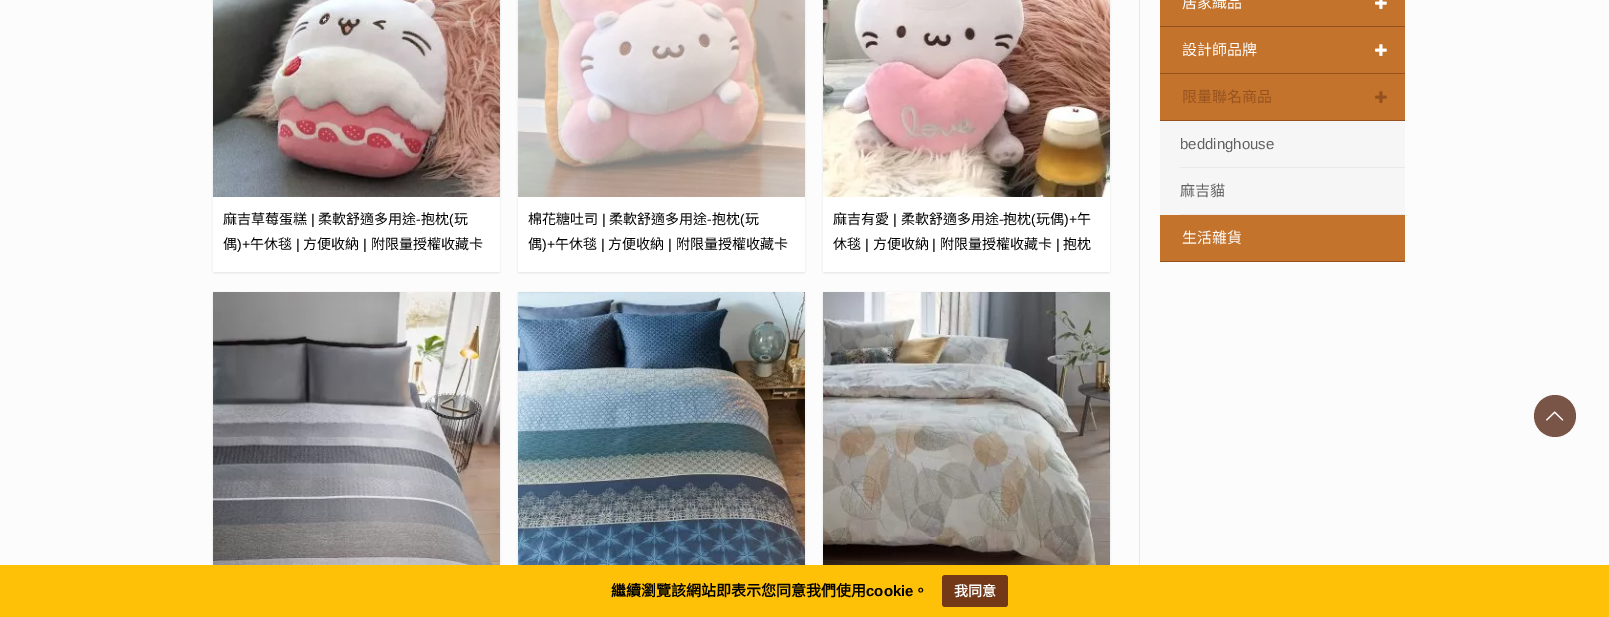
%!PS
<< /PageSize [1609 617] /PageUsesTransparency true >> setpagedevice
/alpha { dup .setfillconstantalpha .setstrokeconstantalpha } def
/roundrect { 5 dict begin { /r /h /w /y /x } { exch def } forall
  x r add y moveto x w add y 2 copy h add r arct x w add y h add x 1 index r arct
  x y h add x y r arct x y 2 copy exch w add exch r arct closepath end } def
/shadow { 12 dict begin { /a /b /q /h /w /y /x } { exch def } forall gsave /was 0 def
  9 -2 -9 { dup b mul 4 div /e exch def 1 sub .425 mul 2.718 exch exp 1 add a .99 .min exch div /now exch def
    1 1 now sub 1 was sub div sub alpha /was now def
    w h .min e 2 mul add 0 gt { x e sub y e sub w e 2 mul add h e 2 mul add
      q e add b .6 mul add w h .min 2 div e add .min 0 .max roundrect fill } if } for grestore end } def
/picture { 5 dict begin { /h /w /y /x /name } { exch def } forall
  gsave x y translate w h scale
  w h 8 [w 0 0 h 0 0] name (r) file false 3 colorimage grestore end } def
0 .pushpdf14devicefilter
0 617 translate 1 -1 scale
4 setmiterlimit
0.988 setgray
0 0 1609 617 rectfill
0 setgray
213 -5 287 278 2 1 0.1 shadow
(img1.rgb) 213 0 287 197 picture
1 setgray
213 197 287 75 rectfill
/NotoSansCJKTC-Regular [14 0 0 -14 0 0] selectfont
0 setgray
223 224 moveto (麻吉草莓蛋糕) show
/LiberationSans-Regular [14 0 0 -14 0 0] selectfont
311 224 moveto (|) show
/NotoSansCJKTC-Regular [14 0 0 -14 0 0] selectfont
318 224 moveto (柔軟舒適多用途) show
/LiberationSans-Regular [14 0 0 -14 0 0] selectfont
416 224 moveto (-) show
/NotoSansCJKTC-Regular [14 0 0 -14 0 0] selectfont
421 224 moveto (抱枕) show
/LiberationSans-Regular [14 0 0 -14 0 0] selectfont
449 224 moveto (\() show
/NotoSansCJKTC-Regular [14 0 0 -14 0 0] selectfont
454 224 moveto (玩) show
223 249 moveto (偶) show
/LiberationSans-Regular [14 0 0 -14 0 0] selectfont
237 249 moveto (\)+) show
/NotoSansCJKTC-Regular [14 0 0 -14 0 0] selectfont
250 249 moveto (午休毯) show
/LiberationSans-Regular [14 0 0 -14 0 0] selectfont
296 249 moveto (|) show
/NotoSansCJKTC-Regular [14 0 0 -14 0 0] selectfont
303 249 moveto (方便收納) show
/LiberationSans-Regular [14 0 0 -14 0 0] selectfont
363 249 moveto (|) show
/NotoSansCJKTC-Regular [14 0 0 -14 0 0] selectfont
371 249 moveto (附限量授權收藏卡) show
gsave
newpath 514 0 moveto 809 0 lineto 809 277 lineto 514 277 lineto closepath 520 -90 moveto 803 -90 lineto 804 -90 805 -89 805 -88 curveto 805 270 lineto 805 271 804 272 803 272 curveto 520 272 lineto 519 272 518 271 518 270 curveto 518 -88 lineto 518 -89 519 -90 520 -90 curveto closepath eoclip newpath
518 -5 287 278 2 1 0.1 shadow
grestore
(img2.rgb) 518 0 287 197 picture
1 setgray
518 197 287 75 rectfill
0 setgray
528 224 moveto (棉花糖吐司) show
/LiberationSans-Regular [14 0 0 -14 0 0] selectfont
602 224 moveto (|) show
/NotoSansCJKTC-Regular [14 0 0 -14 0 0] selectfont
609 224 moveto (柔軟舒適多用途) show
/LiberationSans-Regular [14 0 0 -14 0 0] selectfont
707 224 moveto (-) show
/NotoSansCJKTC-Regular [14 0 0 -14 0 0] selectfont
712 224 moveto (抱枕) show
/LiberationSans-Regular [14 0 0 -14 0 0] selectfont
740 224 moveto (\() show
/NotoSansCJKTC-Regular [14 0 0 -14 0 0] selectfont
745 224 moveto (玩) show
528 249 moveto (偶) show
/LiberationSans-Regular [14 0 0 -14 0 0] selectfont
542 249 moveto (\)+) show
/NotoSansCJKTC-Regular [14 0 0 -14 0 0] selectfont
555 249 moveto (午休毯) show
/LiberationSans-Regular [14 0 0 -14 0 0] selectfont
601 249 moveto (|) show
/NotoSansCJKTC-Regular [14 0 0 -14 0 0] selectfont
608 249 moveto (方便收納) show
/LiberationSans-Regular [14 0 0 -14 0 0] selectfont
668 249 moveto (|) show
/NotoSansCJKTC-Regular [14 0 0 -14 0 0] selectfont
676 249 moveto (附限量授權收藏卡) show
823 -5 287 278 2 1 0.1 shadow
(img3.rgb) 823 0 287 197 picture
1 setgray
823 197 287 75 rectfill
0 setgray
833 224 moveto (麻吉有愛) show
/LiberationSans-Regular [14 0 0 -14 0 0] selectfont
893 224 moveto (|) show
/NotoSansCJKTC-Regular [14 0 0 -14 0 0] selectfont
901 224 moveto (柔軟舒適多用途) show
/LiberationSans-Regular [14 0 0 -14 0 0] selectfont
999 224 moveto (-) show
/NotoSansCJKTC-Regular [14 0 0 -14 0 0] selectfont
1003 224 moveto (抱枕) show
/LiberationSans-Regular [14 0 0 -14 0 0] selectfont
1031 224 moveto (\() show
/NotoSansCJKTC-Regular [14 0 0 -14 0 0] selectfont
1036 224 moveto (玩偶) show
/LiberationSans-Regular [14 0 0 -14 0 0] selectfont
1064 224 moveto (\)+) show
/NotoSansCJKTC-Regular [14 0 0 -14 0 0] selectfont
1077 224 moveto (午) show
833 249 moveto (休毯) show
/LiberationSans-Regular [14 0 0 -14 0 0] selectfont
865 249 moveto (|) show
/NotoSansCJKTC-Regular [14 0 0 -14 0 0] selectfont
873 249 moveto (方便收納) show
/LiberationSans-Regular [14 0 0 -14 0 0] selectfont
932 249 moveto (|) show
/NotoSansCJKTC-Regular [14 0 0 -14 0 0] selectfont
940 249 moveto (附限量授權收藏卡) show
/LiberationSans-Regular [14 0 0 -14 0 0] selectfont
1056 249 moveto (|) show
/NotoSansCJKTC-Regular [14 0 0 -14 0 0] selectfont
1063 249 moveto (抱枕) show
213 293 287 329 2 1 0.1 shadow
(img4.rgb) 213 292 287 273 picture
518 293 287 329 2 1 0.1 shadow
(img5.rgb) 518 292 287 273 picture
823 293 287 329 2 1 0.1 shadow
(img6.rgb) 823 292 287 273 picture
0.91 setgray
1139 0 1 565 rectfill
0.769 0.451 0.176 setrgbcolor
1160 0 245 26 rectfill
0.588 0.322 0.118 setrgbcolor
1160 26 245 1 rectfill
/NotoSansCJKTC-Regular [15 0 0 -15 0 0] selectfont
1 setgray
1182 8 moveto (居家織品) show
(img7.rgb) 1375 0 12 9 picture
0.769 0.451 0.176 setrgbcolor
1160 27 245 46 rectfill
0.588 0.322 0.118 setrgbcolor
1160 73 245 1 rectfill
1 setgray
1182 55 moveto (設計師品牌) show
(img8.rgb) 1375 44 12 12 picture
0.769 0.451 0.176 setrgbcolor
1160 74 245 46 rectfill
0.588 0.322 0.118 setrgbcolor
1160 120 245 1 rectfill
1182 102 moveto (限量聯名商品) show
(img9.rgb) 1375 91 12 12 picture
0.965 setgray
1160 121 245 94 rectfill
0.918 setgray
1180 167 225 1 rectfill
/LiberationSans-Regular [15 0 0 -15 0 0] selectfont
0.384 setgray
1180 149 moveto (beddinghouse) show
0.918 setgray
1180 214 225 1 rectfill
/NotoSansCJKTC-Regular [15 0 0 -15 0 0] selectfont
0.384 setgray
1180 196 moveto (麻吉貓) show
0.769 0.451 0.176 setrgbcolor
1160 215 245 46 rectfill
0.588 0.322 0.118 setrgbcolor
1160 261 245 1 rectfill
1 setgray
1182 243 moveto (生活雜貨) show
0.475 0.333 0.282 setrgbcolor
newpath 1555 416 21 0 360 arc closepath fill
(img10.rgb) 1546 411 18 10 picture
1 0.757 0.027 setrgbcolor
0 565 1609 52 rectfill
/NotoSansCJKTC-Bold [15 0 0 -15 0 0] selectfont
0 setgray
611 596 moveto (繼續瀏覽該網站即表示您同意我們使用) show
/LiberationSans-Bold [15 0 0 -15 0 0] selectfont
866 596 moveto (cookie) show
/NotoSansCJKTC-Bold [15 0 0 -15 0 0] selectfont
913 596 moveto (。) show
0.447 0.22 0.09 setrgbcolor
942 575 66 32 3 roundrect fill
/NotoSansCJKTC-Bold [14 0 0 -14 0 0] selectfont
1 setgray
954 596 moveto (我同意) show
.poppdf14devicefilter showpage
